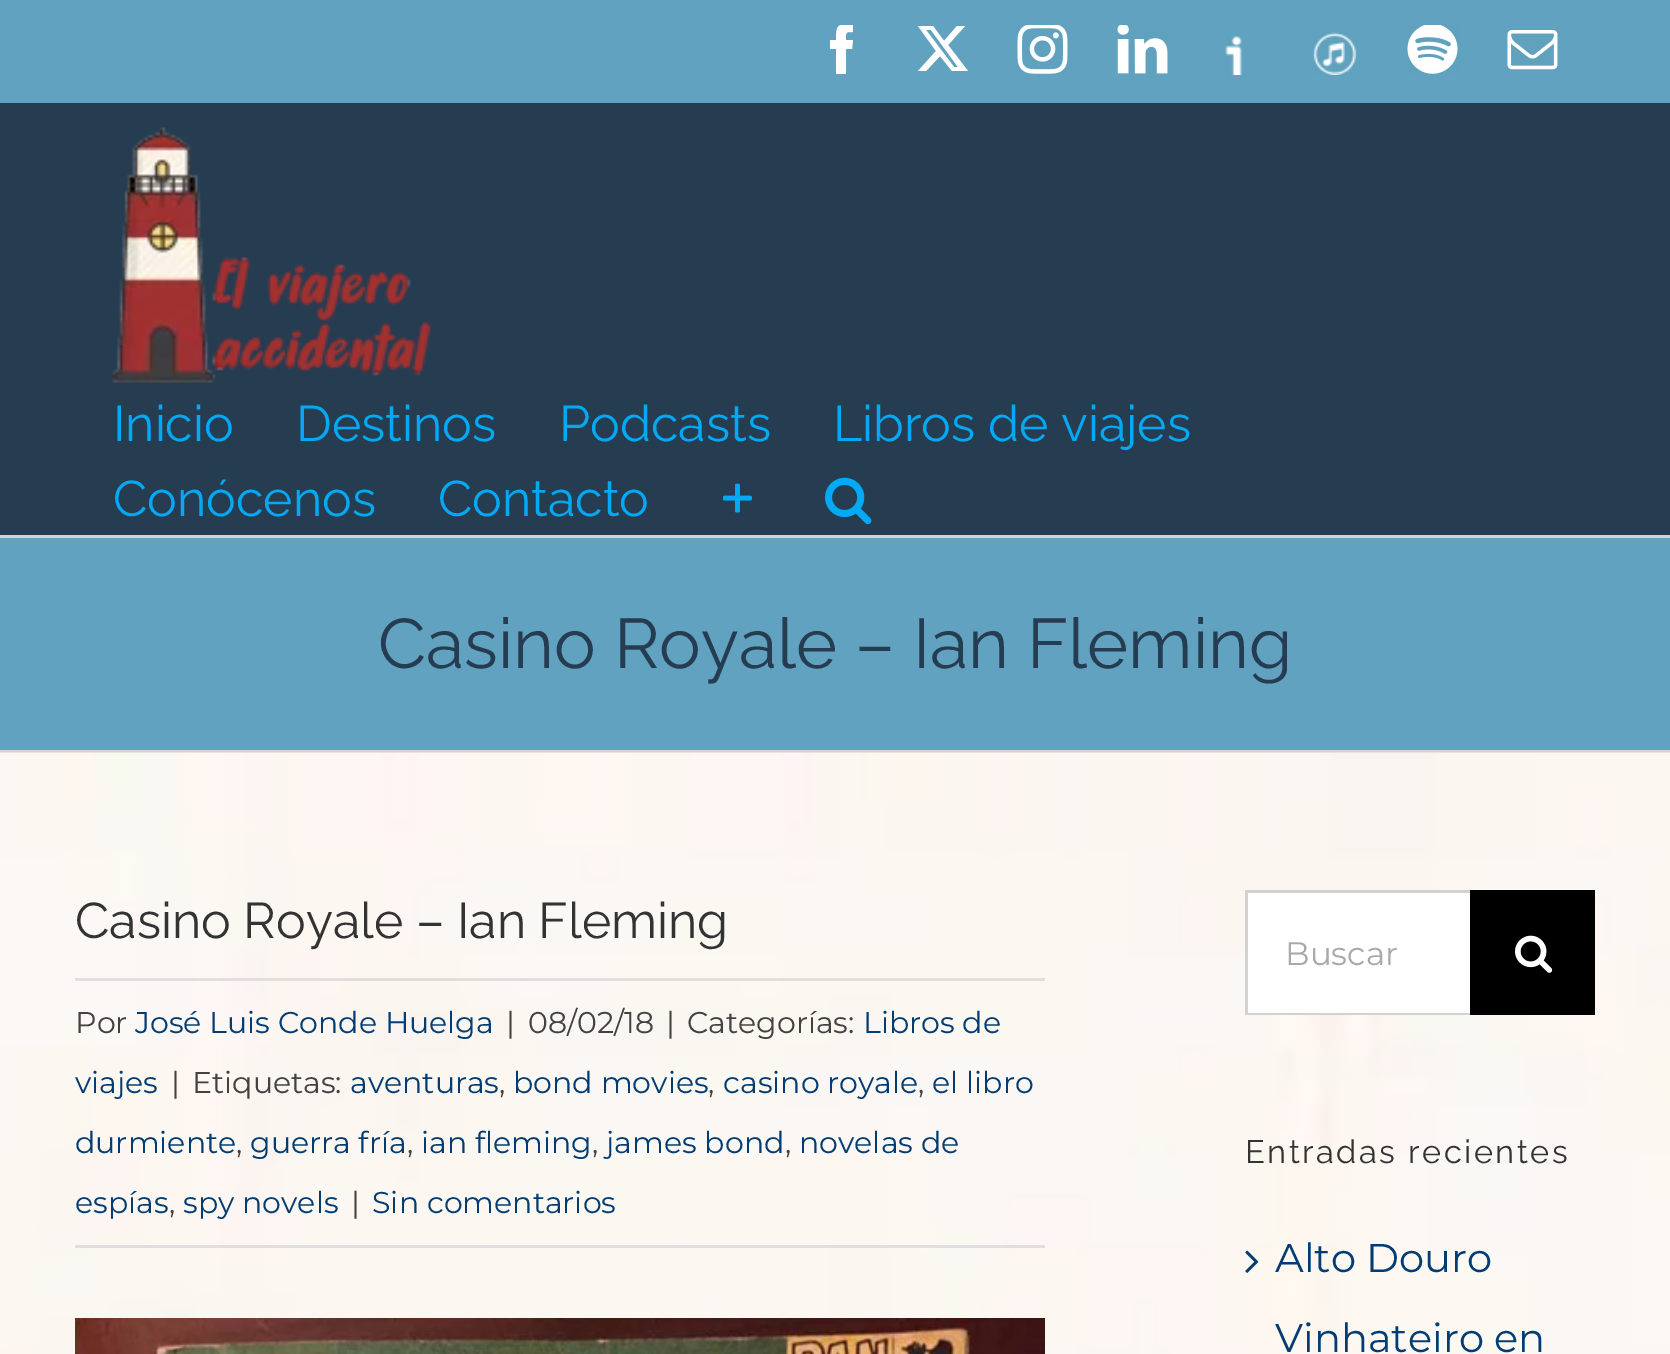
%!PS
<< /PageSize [1670 1354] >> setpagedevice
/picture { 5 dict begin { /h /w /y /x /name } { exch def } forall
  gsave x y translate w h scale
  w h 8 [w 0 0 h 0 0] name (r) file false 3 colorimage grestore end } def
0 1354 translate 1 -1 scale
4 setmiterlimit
0.376 0.635 0.749 setrgbcolor
0 0 1670 1354 rectfill
gsave
818 25 740 75 rectclip
1 setgray
newpath 846 74 moveto 836 74 lineto 836 49 lineto 830 49 lineto 830 40 lineto 836 40 lineto 836 24 838 24 853 24 curveto 853 32 lineto 845 32 846 32 846 40 curveto 853 40 lineto 852 49 lineto 846 49 lineto closepath fill
grestore
1 setgray
newpath 957 26 moveto 965 26 lineto 948 45 lineto 968 71 lineto 952 71 lineto 940 56 lineto 926 71 lineto 918 71 lineto 936 51 lineto 918 26 lineto 933 26 lineto 944 41 lineto closepath 954 67 moveto 958 67 lineto 931 30 lineto 926 30 lineto closepath fill
(img1.rgb) 1017 25 51 49 picture
(img2.rgb) 1117 25 51 49 picture
(img3.rgb) 1225 36 17 39 picture
(img4.rgb) 1313 32 44 43 picture
(img5.rgb) 1407 25 51 49 picture
(img6.rgb) 1507 30 51 40 picture
0.149 0.235 0.318 setrgbcolor
0 103 1670 432 rectfill
(img7.rgb) 112 127 319 256 picture
/Raleway-Thin [50 0 0 -50 0 0] selectfont
0.012 0.663 0.957 setrgbcolor
113 441 moveto (Inicio) show
296 441 moveto (Destinos) show
559 441 moveto (Podcasts) show
833 441 moveto (Libros de viajes) show
113 516 moveto (Conócenos) show
438 516 moveto (Contacto) show
(img8.rgb) 723 483 29 30 picture
(img9.rgb) 825 477 47 48 picture
0.824 0.827 0.831 setrgbcolor
0 535 1670 3 rectfill
0 750 1670 3 rectfill
/Raleway-Thin [70 0 0 -70 0 0] selectfont
0.149 0.235 0.318 setrgbcolor
378 668 moveto (Casino Royale – Ian Fleming) show
(img10.rgb) 0 752 1670 602 picture
/Raleway-Thin [50 0 0 -50 0 0] selectfont
0.2 setgray
75 938 moveto (Casino Royale – Ian Fleming) show
0.878 0.871 0.871 setrgbcolor
75 978 970 3 rectfill
75 1245 970 3 rectfill
/Montserrat-Regular [30 0 0 -30 0 0] selectfont
0.259 setgray
75 1033 moveto (Por) show
0.004 0.239 0.451 setrgbcolor
135 1033 moveto (José Luis Conde Huelga) show
0.259 setgray
506 1033 moveto (|) show
528 1033 moveto (08/02/18) show
666 1033 moveto (|) show
687 1033 moveto (Categorías:) show
0.004 0.239 0.451 setrgbcolor
863 1033 moveto (Libros de) show
75 1093 moveto (viajes) show
0.259 setgray
171 1093 moveto (|) show
192 1093 moveto (Etiquetas:) show
0.004 0.239 0.451 setrgbcolor
350 1093 moveto (aventuras) show
0.259 setgray
499 1093 moveto (,) show
0.004 0.239 0.451 setrgbcolor
513 1093 moveto (bond movies) show
0.259 setgray
708 1093 moveto (,) show
0.004 0.239 0.451 setrgbcolor
723 1093 moveto (casino royale) show
0.259 setgray
918 1093 moveto (,) show
0.004 0.239 0.451 setrgbcolor
932 1093 moveto (el libro) show
75 1153 moveto (durmiente) show
0.259 setgray
236 1153 moveto (,) show
0.004 0.239 0.451 setrgbcolor
250 1153 moveto (guerra fría) show
0.259 setgray
407 1153 moveto (,) show
0.004 0.239 0.451 setrgbcolor
421 1153 moveto (ian fleming) show
0.259 setgray
592 1153 moveto (,) show
0.004 0.239 0.451 setrgbcolor
606 1153 moveto (james bond) show
0.259 setgray
785 1153 moveto (,) show
0.004 0.239 0.451 setrgbcolor
799 1153 moveto (novelas de) show
75 1213 moveto (espías) show
0.259 setgray
169 1213 moveto (,) show
0.004 0.239 0.451 setrgbcolor
183 1213 moveto (spy novels) show
0.259 setgray
351 1213 moveto (|) show
0.004 0.239 0.451 setrgbcolor
372 1213 moveto (Sin comentarios) show
(img11.rgb) 75 1318 970 36 picture
1 setgray
1248 893 222 120 rectfill
0.824 setgray
1245 890 225 3 rectfill
1245 1013 225 2 rectfill
1245 890 3 125 rectfill
/Montserrat-Regular [32.5 0 0 -32.5 0 0] selectfont
0.667 0.663 0.663 setrgbcolor
1285 965 moveto (Buscar) show
0 setgray
1470 890 125 125 rectfill
(img12.rgb) 1515 935 38 38 picture
/Raleway-Thin [32.5 0 0 -32.5 0 0] selectfont
0.2 setgray
1245 1163 moveto 2.5 0 (Entradas recientes) ashow
(img13.rgb) 1245 1250 14 23 picture
/Montserrat-Regular [40 0 0 -40 0 0] selectfont
0.004 0.239 0.451 setrgbcolor
1275 1272 moveto (Alto Douro) show
1275 1352 moveto (Vinhateiro en) show
showpage
